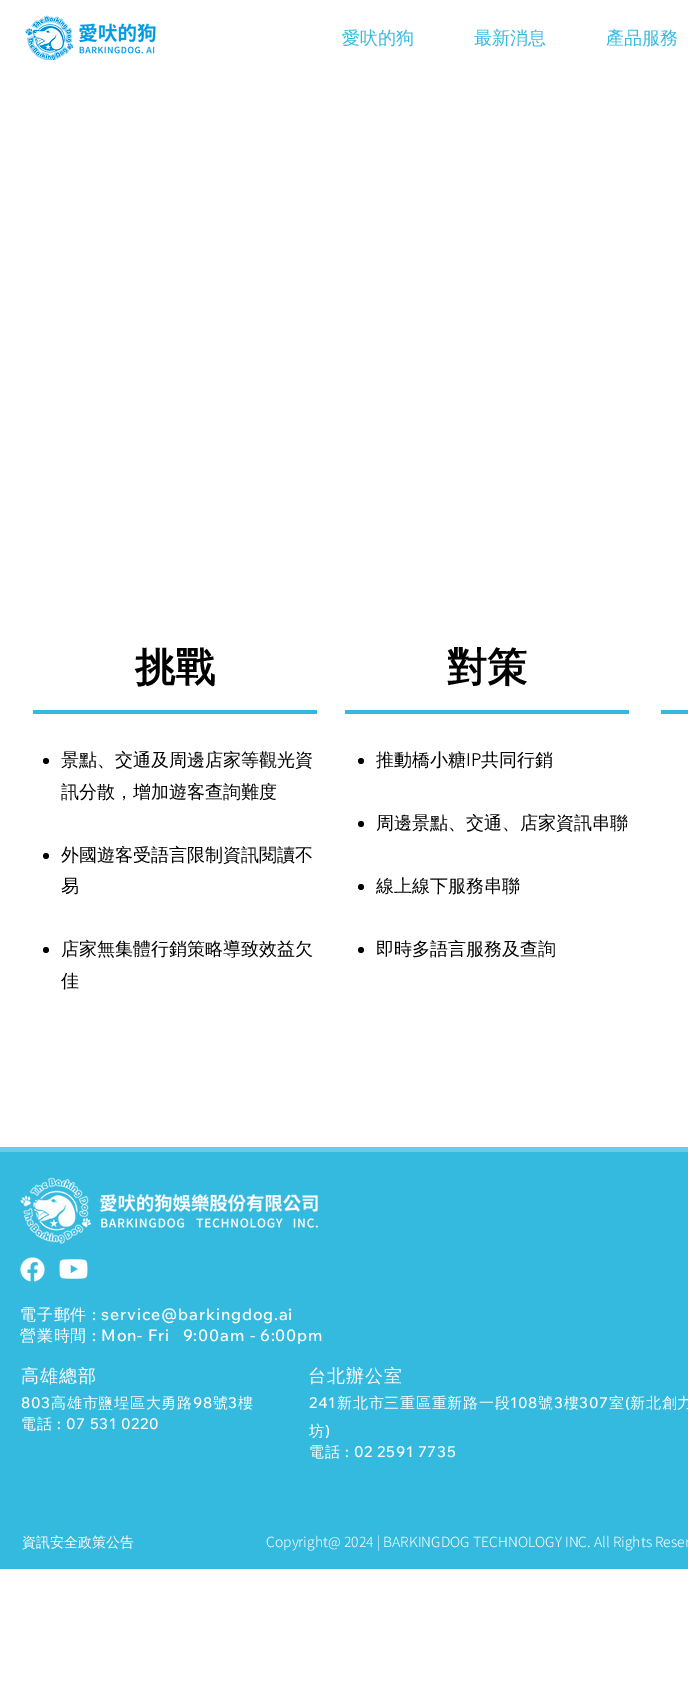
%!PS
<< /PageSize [688 1692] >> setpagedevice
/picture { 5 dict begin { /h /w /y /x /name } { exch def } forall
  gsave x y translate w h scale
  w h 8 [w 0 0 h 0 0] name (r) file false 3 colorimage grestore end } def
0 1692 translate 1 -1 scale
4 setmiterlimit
1 setgray
0 0 688 1692 rectfill
(img1.rgb) 25 15 131 45 picture
/WenQuanYiZenHei-Medium [18 0 0 -18 0 0] selectfont
0.208 0.729 0.875 setrgbcolor
342 44 moveto (愛吠的狗) show
474 44 moveto (最新消息) show
606 44 moveto (產品服務) show
/WenQuanYiZenHei-Bold [40 0 0 -40 0 0] selectfont
0 setgray
135 681 moveto (挑戰) show
0.208 0.729 0.875 setrgbcolor
33 710 284 4 rectfill
0 setgray
newpath 46 761 3 0 360 arc closepath fill
/WenQuanYiZenHei-Medium [18 0 0 -18 0 0] selectfont
61 766 moveto (景點、交通及周邊店家等觀光資) show
61 798 moveto (訊分散，增加遊客查詢難度) show
newpath 46 856 3 0 360 arc closepath fill
61 861 moveto (外國遊客受語言限制資訊閱讀不) show
61 892 moveto (易) show
newpath 46 950 3 0 360 arc closepath fill
61 955 moveto (店家無集體行銷策略導致效益欠) show
61 987 moveto (佳) show
/WenQuanYiZenHei-Bold [40 0 0 -40 0 0] selectfont
447 681 moveto (對策) show
0.208 0.729 0.875 setrgbcolor
345 710 284 4 rectfill
0 setgray
newpath 361 761 3 0 360 arc closepath fill
/WenQuanYiZenHei-Medium [18 0 0 -18 0 0] selectfont
376 766 moveto (推動橋小糖) show
/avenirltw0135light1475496-Light [18 0 0 -18 0 0] selectfont
466 766 moveto (IP) show
/WenQuanYiZenHei-Medium [18 0 0 -18 0 0] selectfont
481 766 moveto (共同行銷) show
newpath 361 824 3 0 360 arc closepath fill
376 829 moveto (周邊景點、交通、店家資訊串聯) show
newpath 361 887 3 0 360 arc closepath fill
376 892 moveto (線上線下服務串聯) show
newpath 361 950 3 0 360 arc closepath fill
376 955 moveto (即時多語言服務及查詢) show
0.208 0.729 0.875 setrgbcolor
661 710 27 4 rectfill
0 1152 688 417 rectfill
0.408 0.796 0.906 setrgbcolor
0 1147 688 5 rectfill
(img2.rgb) 20 1177 299 67 picture
(img3.rgb) 20 1257 25 25 picture
(img4.rgb) 59 1259 29 20 picture
/WenQuanYiZenHei-Medium [16 0 0 -16 0 0] selectfont
1 setgray
20 1320 moveto 0.8 0 (電子郵件) ashow
/WixMadeforText-Medium [16 0 0 -16 0 0] selectfont
92 1320 moveto 0.8 0 (: service@barkingdog.a) ashow
/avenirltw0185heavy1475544-Black [16 0 0 -16 0 0] selectfont
288 1320 moveto 0.8 0 (i) ashow
/WenQuanYiZenHei-Medium [16 0 0 -16 0 0] selectfont
20 1341 moveto 0.8 0 (營業時間) ashow
/WixMadeforText-Medium [16 0 0 -16 0 0] selectfont
92 1341 moveto 0.8 0 (: Mon- Fri   9:00am - 6:00pm) ashow
/WenQuanYiZenHei-Medium [18 0 0 -18 0 0] selectfont
21 1382 moveto 1 0 (高雄總部) ashow
/WixMadeforText-Medium [15 0 0 -15 0 0] selectfont
21 1408 moveto 0.75 0 (803) ashow
/WenQuanYiZenHei-Medium [15 0 0 -15 0 0] selectfont
51 1408 moveto 0.75 0 (高雄市鹽埕區大勇路) ashow
/WixMadeforText-Medium [15 0 0 -15 0 0] selectfont
193 1408 moveto 0.75 0 (98) ashow
/WenQuanYiZenHei-Medium [15 0 0 -15 0 0] selectfont
213 1408 moveto 0.75 0 (號) ashow
/WixMadeforText-Medium [15 0 0 -15 0 0] selectfont
228 1408 moveto 0.75 0 (3) ashow
/WenQuanYiZenHei-Medium [15 0 0 -15 0 0] selectfont
238 1408 moveto 0.75 0 (樓) ashow
21 1429 moveto 0.75 0 (電話) ashow
/WixMadeforText-Medium [15 0 0 -15 0 0] selectfont
57 1429 moveto 0.75 0 (: 07 531 0220) ashow
/WenQuanYiZenHei-Medium [18 0 0 -18 0 0] selectfont
308 1382 moveto 1 0 (台北辦公室) ashow
/WixMadeforText-Medium [15 0 0 -15 0 0] selectfont
309 1408 moveto 0.75 0 (241) ashow
/WenQuanYiZenHei-Medium [15 0 0 -15 0 0] selectfont
337 1408 moveto 0.75 0 (新北市三重區重新路一段) ashow
/WixMadeforText-Medium [15 0 0 -15 0 0] selectfont
510 1408 moveto 0.75 0 (108) ashow
/WenQuanYiZenHei-Medium [15 0 0 -15 0 0] selectfont
538 1408 moveto 0.75 0 (號) ashow
/WixMadeforText-Medium [15 0 0 -15 0 0] selectfont
554 1408 moveto 0.75 0 (3) ashow
/WenQuanYiZenHei-Medium [15 0 0 -15 0 0] selectfont
564 1408 moveto 0.75 0 (樓) ashow
/WixMadeforText-Medium [15 0 0 -15 0 0] selectfont
579 1408 moveto 0.75 0 (307) ashow
/WenQuanYiZenHei-Medium [15 0 0 -15 0 0] selectfont
609 1408 moveto 0.75 0 (室) ashow
/WixMadeforText-Medium [15 0 0 -15 0 0] selectfont
625 1408 moveto 0.75 0 (\() ashow
/WenQuanYiZenHei-Medium [15 0 0 -15 0 0] selectfont
630 1408 moveto 0.75 0 (新北創力) ashow
309 1436 moveto 0.75 0 (坊) ashow
/WixMadeforText-Medium [15 0 0 -15 0 0] selectfont
325 1436 moveto 0.75 0 (\)) ashow
/WenQuanYiZenHei-Medium [15 0 0 -15 0 0] selectfont
309 1457 moveto 0.75 0 (電話) ashow
/WixMadeforText-Medium [15 0 0 -15 0 0] selectfont
345 1457 moveto 0.75 0 (: 02 2591 7735) ashow
/WenQuanYiZenHei-Medium [14 0 0 -14 0 0] selectfont
22 1547 moveto (資訊安全政策公告) show
/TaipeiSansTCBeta-Light [14 0 0 -14 0 0] selectfont
266 1547 moveto (Copyright@ 2024 | BARKINGDOG TECHNOLOGY INC. All Rights Reser) show
showpage
